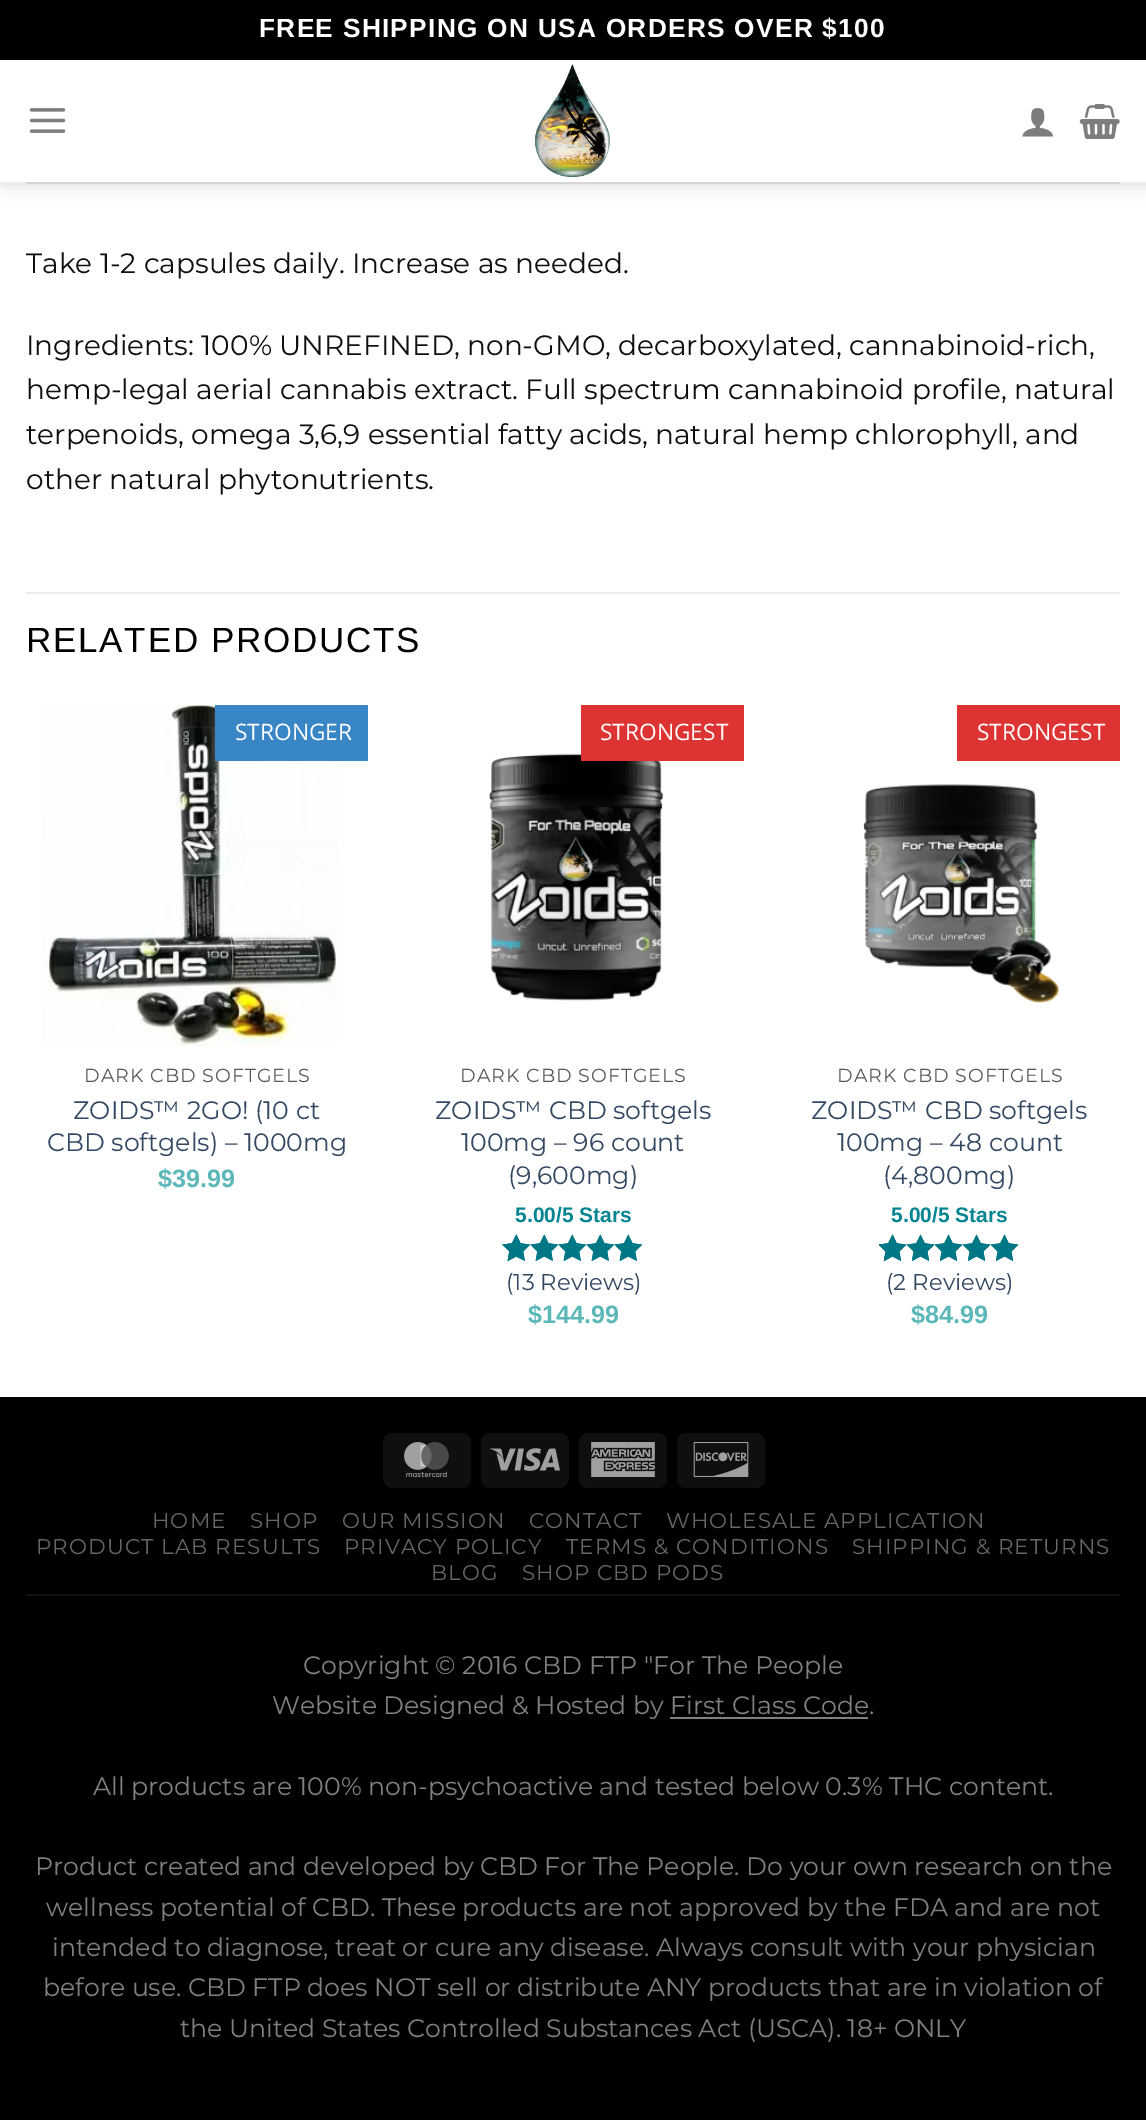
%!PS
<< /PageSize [1146 2120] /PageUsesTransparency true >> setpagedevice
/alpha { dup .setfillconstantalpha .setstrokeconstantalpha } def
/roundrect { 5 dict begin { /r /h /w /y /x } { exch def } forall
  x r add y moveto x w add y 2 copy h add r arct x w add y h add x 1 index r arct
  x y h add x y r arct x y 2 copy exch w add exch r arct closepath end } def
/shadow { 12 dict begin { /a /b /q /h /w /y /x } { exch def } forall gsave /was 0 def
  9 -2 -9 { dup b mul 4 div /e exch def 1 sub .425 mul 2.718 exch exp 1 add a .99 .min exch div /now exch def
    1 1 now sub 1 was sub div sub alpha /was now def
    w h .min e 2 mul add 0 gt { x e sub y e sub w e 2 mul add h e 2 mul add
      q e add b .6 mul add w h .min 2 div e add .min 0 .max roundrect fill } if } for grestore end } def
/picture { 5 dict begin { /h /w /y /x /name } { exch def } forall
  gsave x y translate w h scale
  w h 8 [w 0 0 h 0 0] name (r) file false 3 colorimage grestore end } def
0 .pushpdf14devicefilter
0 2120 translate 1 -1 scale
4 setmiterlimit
0 setgray
0 0 1146 2120 rectfill
1 setgray
0 182 1146 1215 rectfill
0 setgray
2 2 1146 182 0 9 0.15 shadow
/LiberationSans-Bold [26.25 0 0 -26.25 0 0] selectfont
1 setgray
259 37 moveto 1.3 0 (FREE SHIPPING ON USA ORDERS OVER $100) ashow
0 60 1146 122 rectfill
(img1.rgb) 29 108 37 25 picture
(img2.rgb) 534 64 76 114 picture
(img3.rgb) 1022 108 31 29 picture
(img4.rgb) 1079 104 41 35 picture
0.1 alpha
0.059 setgray
26 182 1094 2 rectfill
/Montserrat-Thin [28 0 0 -28 0 0] selectfont
1 alpha
26 273 moveto (Take 1-2 capsules daily. Increase as needed.) show
26 355 moveto (Ingredients: 100% UNREFINED, non-GMO, decarboxylated, cannabinoid-rich,) show
26 399 moveto (hemp-legal aerial cannabis extract. Full spectrum cannabinoid profile, natural) show
26 444 moveto (terpenoids, omega 3,6,9 essential fatty acids, natural hemp chlorophyll, and) show
26 489 moveto (other natural phytonutrients.) show
0.925 setgray
26 592 1094 2 rectfill
/LiberationSans-Regular [35 0 0 -35 0 0] selectfont
0 setgray
26 652 moveto 1.75 0 (RELATED PRODUCTS) ashow
(img5.rgb) 42 705 296 341 picture
0.224 0.525 0.776 setrgbcolor
215 705 153 56 rectfill
/OpenSans-Regular [22.75 0 0 -22.75 0 0] selectfont
1 setgray
235 740 moveto (STRONGER) show
/Montserrat-Thin [18.9 0 0 -18.9 0 0] selectfont
0.341 setgray
84 1082 moveto 1 0 (DARK CBD SOFTGELS) ashow
/Montserrat-Thin [25.2 0 0 -25.2 0 0] selectfont
0.2 0.282 0.384 setrgbcolor
73 1119 moveto (ZOIDS™ 2GO! \(10 ct) show
47 1151 moveto (CBD softgels\) – 1000mg) show
/LiberationSans-Bold [25.2 0 0 -25.2 0 0] selectfont
0.361 0.722 0.722 setrgbcolor
158 1187 moveto ($39.99) show
(img6.rgb) 489 753 175 248 picture
0.867 0.2 0.2 setrgbcolor
581 705 163 56 rectfill
/OpenSans-Regular [22.75 0 0 -22.75 0 0] selectfont
1 setgray
600 740 moveto (STRONGEST) show
/Montserrat-Thin [18.9 0 0 -18.9 0 0] selectfont
0.341 setgray
460 1082 moveto 1 0 (DARK CBD SOFTGELS) ashow
/Montserrat-Thin [25.2 0 0 -25.2 0 0] selectfont
0.2 0.282 0.384 setrgbcolor
435 1119 moveto (ZOIDS™ CBD softgels) show
461 1151 moveto (100mg – 96 count) show
508 1184 moveto (\(9,600mg\)) show
/LiberationSans-Bold [21 0 0 -21 0 0] selectfont
0.02 0.518 0.573 setrgbcolor
515 1222 moveto (5.00/5 Stars) show
(img7.rgb) 502 1234 141 27 picture
(img8.rgb) 502 1234 141 27 picture
(img9.rgb) 502 1234 18 27 picture
/Montserrat-Thin [22.75 0 0 -22.75 0 0] selectfont
0.2 0.282 0.384 setrgbcolor
506 1290 moveto (\(13 Reviews\)) show
/LiberationSans-Bold [25.2 0 0 -25.2 0 0] selectfont
0.361 0.722 0.722 setrgbcolor
528 1323 moveto ($144.99) show
0.867 0.2 0.2 setrgbcolor
957 705 163 56 rectfill
/OpenSans-Regular [22.75 0 0 -22.75 0 0] selectfont
1 setgray
977 740 moveto (STRONGEST) show
(img10.rgb) 863 784 196 219 picture
/Montserrat-Thin [18.9 0 0 -18.9 0 0] selectfont
0.341 setgray
837 1082 moveto 1 0 (DARK CBD SOFTGELS) ashow
/Montserrat-Thin [25.2 0 0 -25.2 0 0] selectfont
0.2 0.282 0.384 setrgbcolor
811 1119 moveto (ZOIDS™ CBD softgels) show
837 1151 moveto (100mg – 48 count) show
883 1184 moveto (\(4,800mg\)) show
/LiberationSans-Bold [21 0 0 -21 0 0] selectfont
0.02 0.518 0.573 setrgbcolor
891 1222 moveto (5.00/5 Stars) show
(img11.rgb) 879 1234 140 27 picture
(img12.rgb) 879 1234 140 27 picture
(img13.rgb) 879 1234 17 27 picture
/Montserrat-Thin [22.75 0 0 -22.75 0 0] selectfont
0.2 0.282 0.384 setrgbcolor
886 1290 moveto (\(2 Reviews\)) show
/LiberationSans-Bold [25.2 0 0 -25.2 0 0] selectfont
0.361 0.722 0.722 setrgbcolor
911 1323 moveto ($84.99) show
0.059 setgray
383 1433 88 55 9 roundrect fill
(img14.rgb) 404 1442 45 35 picture
481 1433 88 55 9 roundrect fill
(img15.rgb) 490 1448 70 23 picture
579 1433 88 55 9 roundrect fill
(img16.rgb) 591 1442 64 35 picture
677 1433 88 55 9 roundrect fill
(img17.rgb) 693 1442 56 35 picture
0.063 setgray
26 1594 1094 2 rectfill
/Montserrat-Thin [21.4 0 0 -21.4 0 0] selectfont
0.4 setgray
152 1528 moveto 1.1 0 (HOME) ashow
250 1528 moveto 1.1 0 (SHOP) ashow
342 1528 moveto 1.1 0 (OUR MISSION) ashow
529 1528 moveto 1.1 0 (CONTACT) ashow
666 1528 moveto 1.1 0 (WHOLESALE APPLICATION) ashow
36 1554 moveto 1.1 0 (PRODUCT LAB RESULTS) ashow
344 1554 moveto 1.1 0 (PRIVACY POLICY) ashow
566 1554 moveto 1.1 0 (TERMS & CONDITIONS) ashow
852 1554 moveto 1.1 0 (SHIPPING & RETURNS) ashow
431 1580 moveto 1.1 0 (BLOG) ashow
522 1580 moveto 1.1 0 (SHOP CBD PODS) ashow
/Montserrat-Thin [25.2 0 0 -25.2 0 0] selectfont
0.502 setgray
303 1674 moveto (Copyright © 2016 CBD FTP "For The People) show
272 1714 moveto (Website Designed & Hosted by First Class Code.) show
670 1717 198 2 rectfill
93 1795 moveto (All products are 100% non-psychoactive and tested below 0.3% THC content.) show
35 1875 moveto (Product created and developed by CBD For The People. Do your own research on the) show
46 1916 moveto (wellness potential of CBD. These products are not approved by the FDA and are not) show
52 1956 moveto (intended to diagnose, treat or cure any disease. Always consult with your physician) show
43 1996 moveto (before use. CBD FTP does NOT sell or distribute ANY products that are in violation of) show
180 2037 moveto (the United States Controlled Substances Act \(USCA\). 18+ ONLY) show
.poppdf14devicefilter showpage
